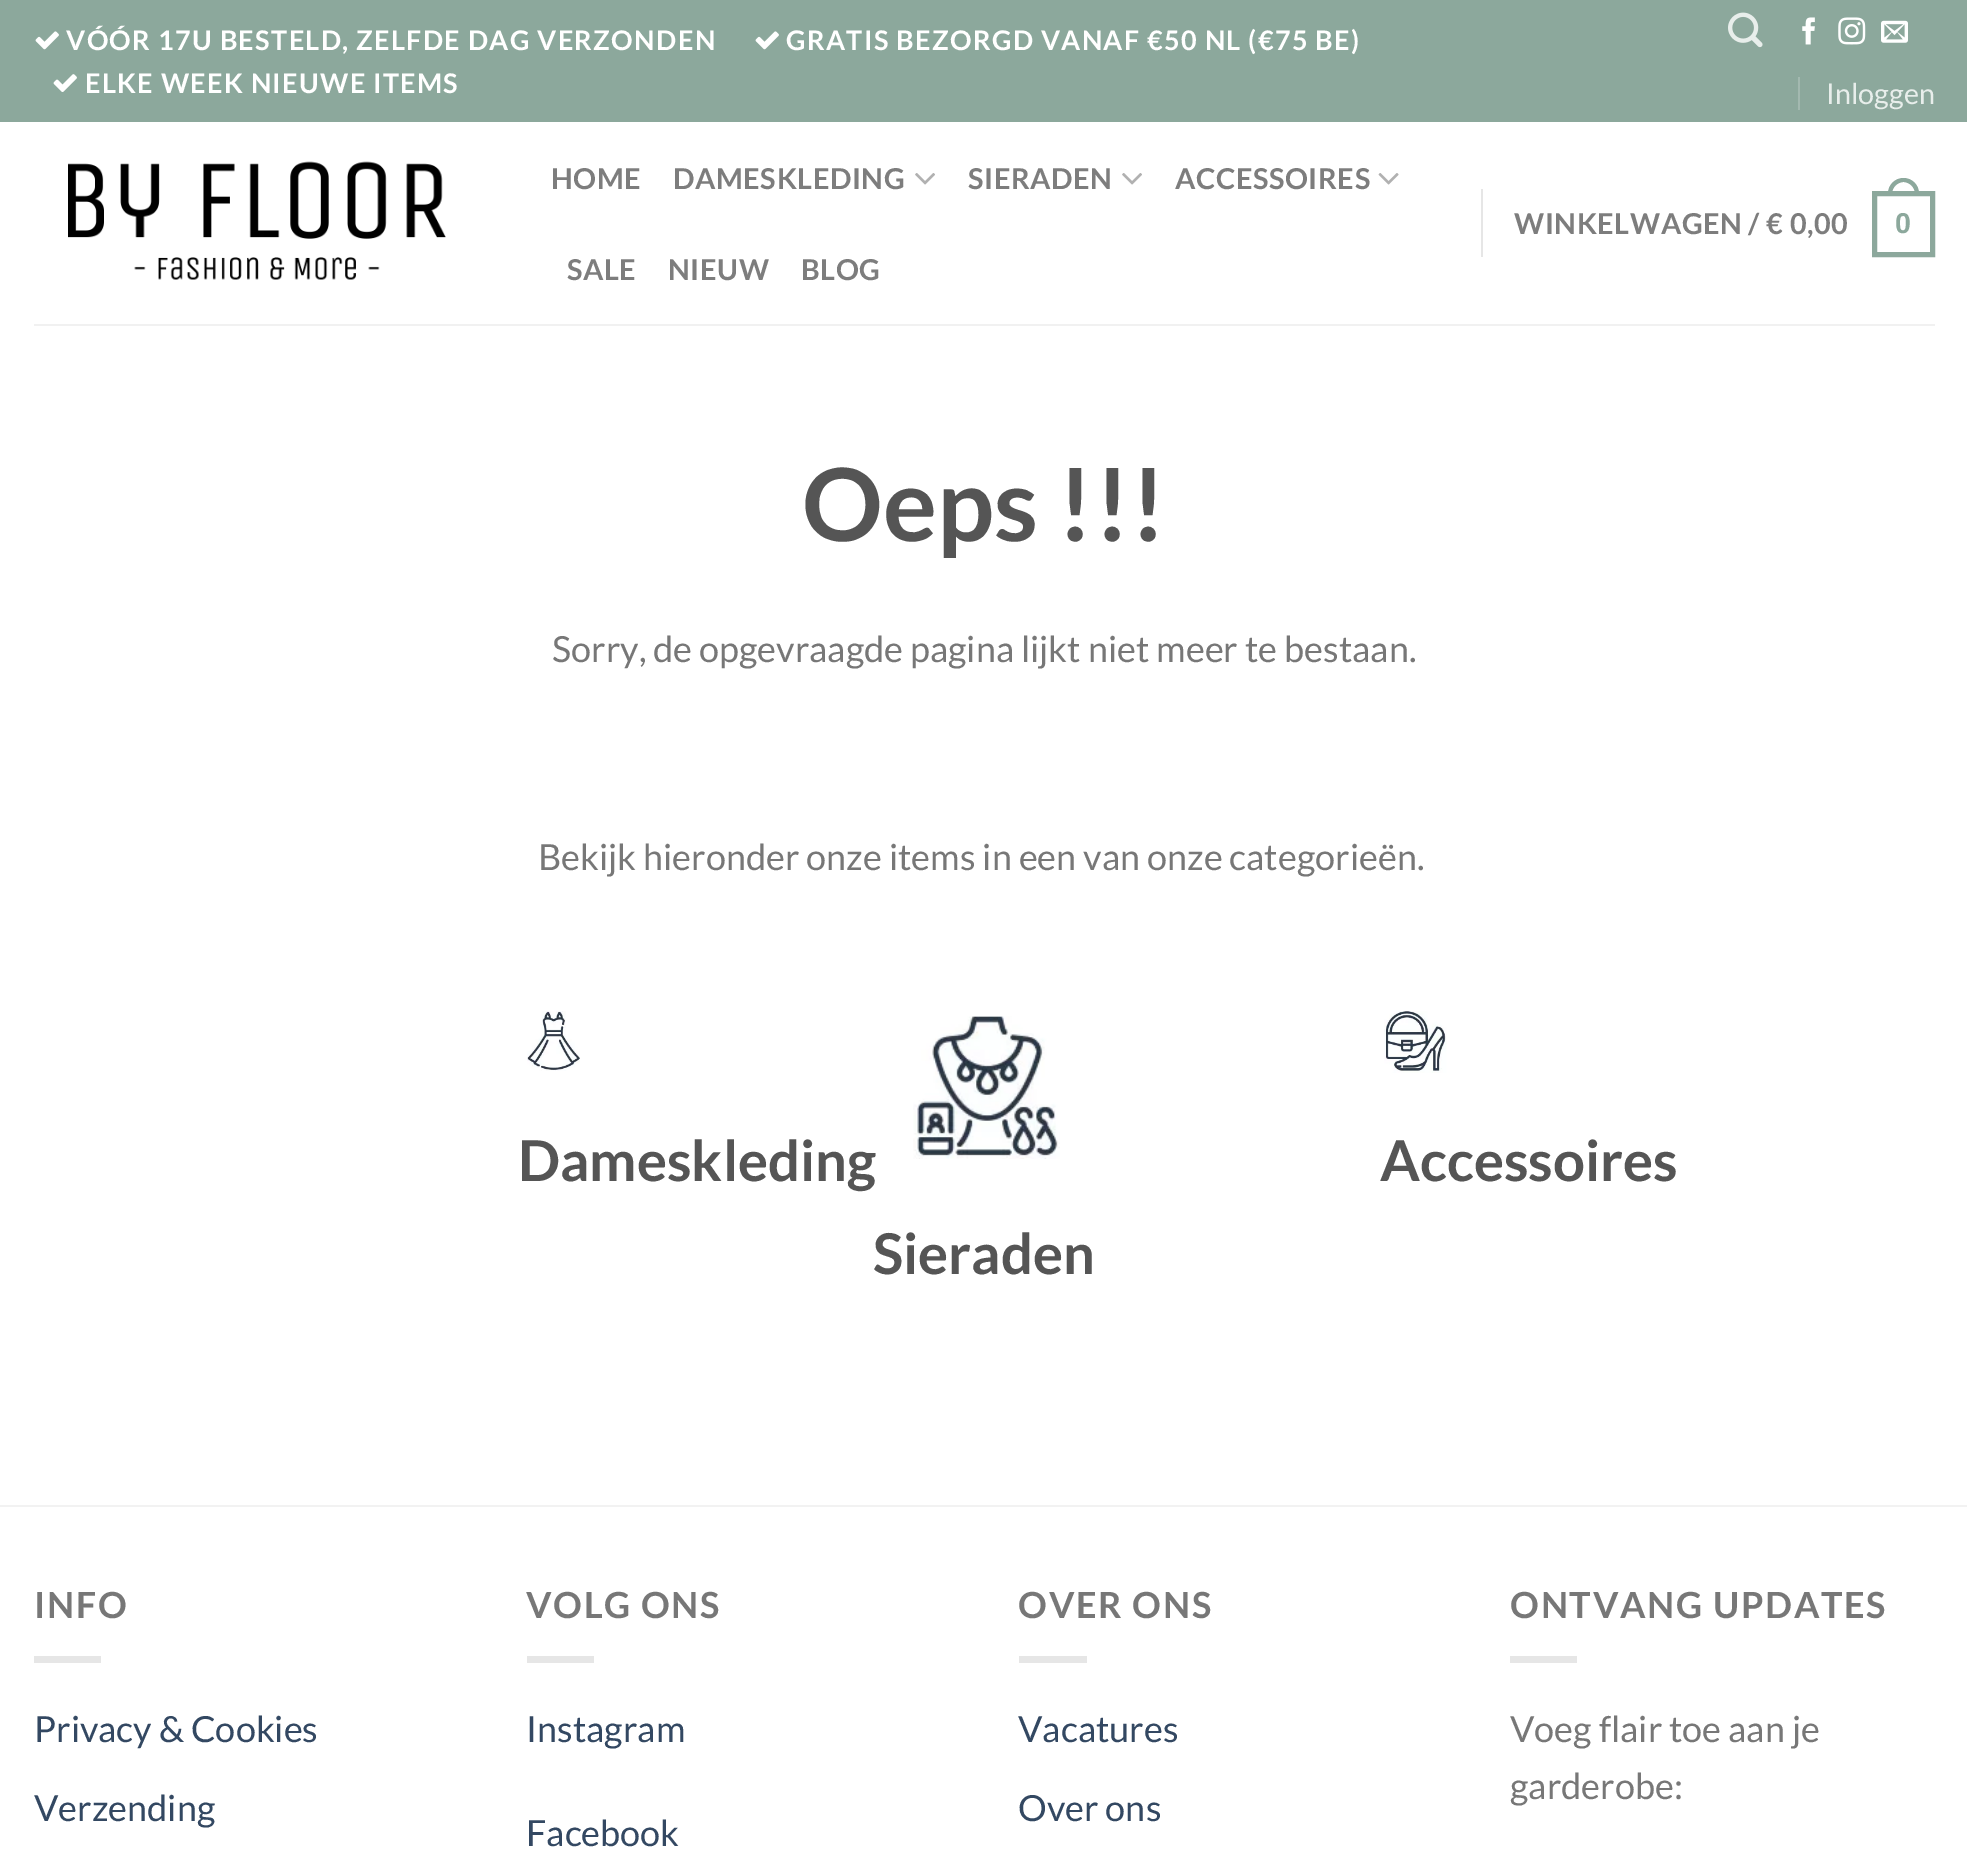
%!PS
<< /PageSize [1967 1862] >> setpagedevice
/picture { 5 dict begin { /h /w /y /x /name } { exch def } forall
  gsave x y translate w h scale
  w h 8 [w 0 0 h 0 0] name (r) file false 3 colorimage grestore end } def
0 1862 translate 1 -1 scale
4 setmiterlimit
1 setgray
0 0 1967 1862 rectfill
0.549 0.659 0.612 setrgbcolor
0 0 1967 122 rectfill
(img1.rgb) 35 31 24 19 picture
/Lato-Bold [27 0 0 -27 0 0] selectfont
1 setgray
66 50 moveto 1.35 0 (VÓÓR 17U BESTELD, ZELFDE DAG VERZONDEN) ashow
(img1.rgb) 755 31 24 19 picture
786 50 moveto 1.35 0 (GRATIS BEZORGD VANAF €50 NL \(€75 BE\)) ashow
(img2.rgb) 53 74 24 18 picture
85 93 moveto 1.35 0 (ELKE WEEK NIEUWE ITEMS) ashow
(img3.rgb) 1728 12 35 36 picture
(img4.rgb) 1802 17 13 28 picture
(img5.rgb) 1838 17 28 28 picture
(img6.rgb) 1881 20 27 23 picture
0.639 0.725 0.69 setrgbcolor
1798 77 2 33 rectfill
/Lato-Regular [28.75 0 0 -28.75 0 0] selectfont
0.91 0.933 0.922 setrgbcolor
1826 104 moveto (Inloggen) show
(img7.rgb) 68 161 378 119 picture
/Lato-Bold [28.75 0 0 -28.75 0 0] selectfont
0.49 setgray
551 189 moveto 0.6 0 (HOME) ashow
673 189 moveto 0.6 0 (DAMESKLEDING) ashow
(img8.rgb) 915 173 20 12 picture
968 189 moveto 0.6 0 (SIERADEN) ashow
(img8.rgb) 1122 173 20 12 picture
1175 189 moveto 0.6 0 (ACCESSOIRES) ashow
(img9.rgb) 1378 173 21 12 picture
567 280 moveto 0.6 0 (SALE) ashow
668 280 moveto 0.6 0 (NIEUW) ashow
801 280 moveto 0.6 0 (BLOG) ashow
0.902 setgray
1481 189 2 68 rectfill
0.49 setgray
1514 234 moveto 0.6 0 (WINKELWAGEN / € 0,00) ashow
0.549 0.659 0.612 setrgbcolor
5 setlinewidth
1874.5 193.5 58 61 rectstroke
newpath 1903.5 178 moveto 1912 178 1919 185 1919 193.5 curveto 1919 196 lineto 1888 196 lineto 1888 193.5 lineto 1888 185 1895 178 1903.5 178 curveto closepath 1903.5 182 moveto 1909.5 182 1915 187.5 1915 193.5 curveto 1915 196 lineto 1892 196 lineto 1892 193.5 lineto 1892 187.5 1897.5 182 1903.5 182 curveto closepath eofill
/LiberationSans-Bold [28.75 0 0 -28.75 0 0] selectfont
1895 233 moveto 0.6 0 (0) ashow
0.945 setgray
34 324 1901 2 rectfill
/Lato-Bold [101 0 0 -101 0 0] selectfont
0.333 setgray
802 541 moveto (Oeps !!!) show
/Lato-Regular [36 0 0 -36 0 0] selectfont
0.467 setgray
552 662 moveto (Sorry, de opgevraagde pagina lijkt niet meer te bestaan.) show
538 870 moveto (Bekijk hieronder onze items in een van onze categorieën.) show
(img10.rgb) 527 1011 53 60 picture
/Lato-Bold [56.25 0 0 -56.25 0 0] selectfont
0.333 setgray
518 1181 moveto (Dameskleding) show
(img11.rgb) 1384 1011 63 62 picture
1380 1181 moveto (Accessoires) show
(img12.rgb) 913 1016 147 143 picture
873 1274 moveto (Sieraden) show
0.949 setgray
0 1505 1967 2 rectfill
/Lato-Bold [36 0 0 -36 0 0] selectfont
0.467 setgray
34 1618 moveto 1.75 0 (INFO) ashow
0.902 setgray
34 1656 67 7 rectfill
/Lato-Regular [36 0 0 -36 0 0] selectfont
0.2 0.282 0.384 setrgbcolor
34 1742 moveto (Privacy & Cookies) show
34 1821 moveto (Verzending) show
/Lato-Bold [36 0 0 -36 0 0] selectfont
0.467 setgray
526 1618 moveto 1.75 0 (VOLG ONS) ashow
0.902 setgray
527 1656 67 7 rectfill
/Lato-Regular [36 0 0 -36 0 0] selectfont
0.2 0.282 0.384 setrgbcolor
526 1742 moveto (Instagram) show
526 1846 moveto (Facebook) show
/Lato-Bold [36 0 0 -36 0 0] selectfont
0.467 setgray
1018 1618 moveto 1.75 0 (OVER ONS) ashow
0.902 setgray
1019 1656 68 7 rectfill
/Lato-Regular [36 0 0 -36 0 0] selectfont
0.2 0.282 0.384 setrgbcolor
1018 1742 moveto (Vacatures) show
1018 1821 moveto (Over ons) show
/Lato-Bold [36 0 0 -36 0 0] selectfont
0.467 setgray
1510 1618 moveto 1.75 0 (ONTVANG UPDATES) ashow
0.902 setgray
1510 1656 67 7 rectfill
/Lato-Regular [36 0 0 -36 0 0] selectfont
0.467 setgray
1510 1742 moveto (Voeg flair toe aan je) show
1510 1799 moveto (garderobe:) show
showpage
